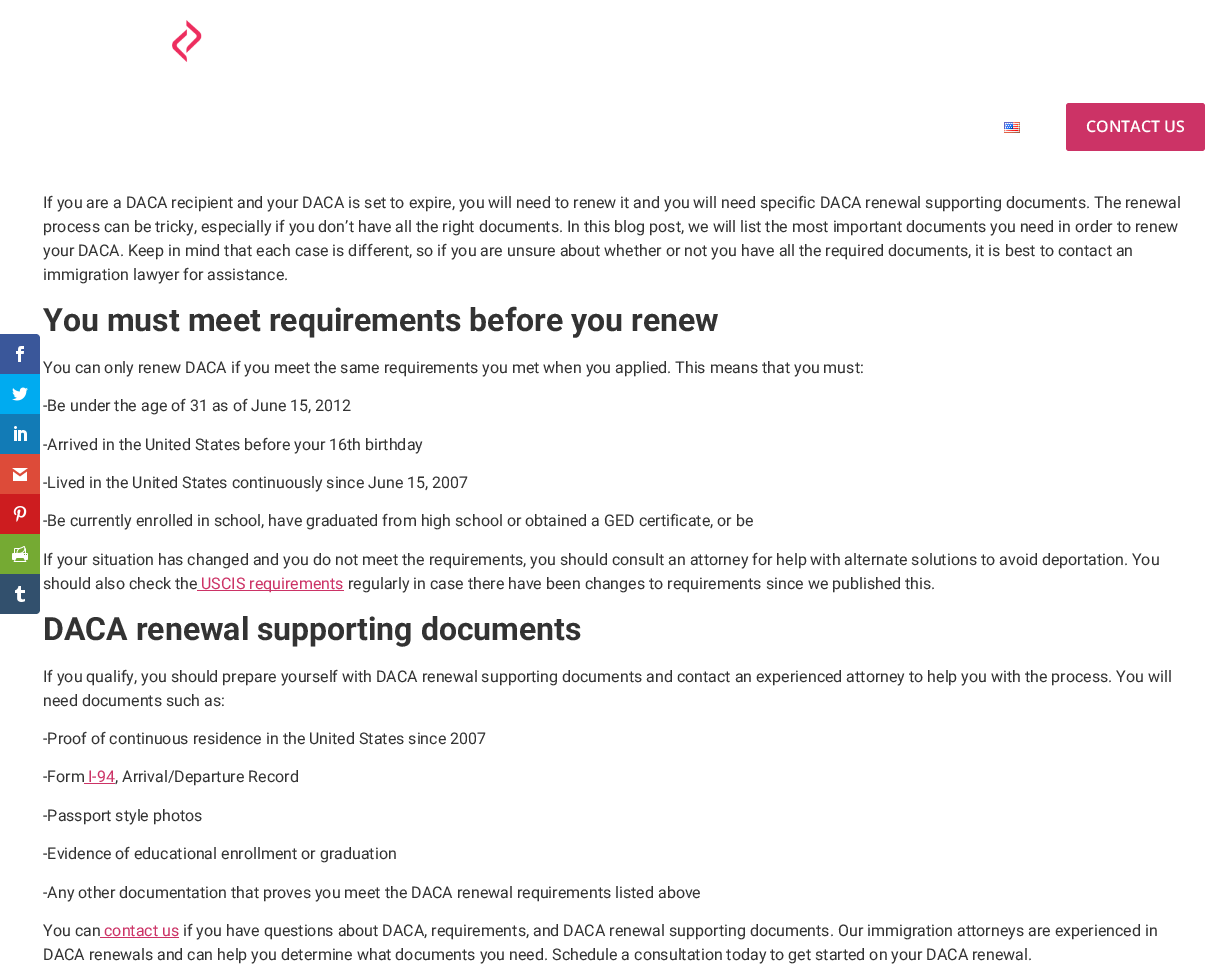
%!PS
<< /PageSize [1225 980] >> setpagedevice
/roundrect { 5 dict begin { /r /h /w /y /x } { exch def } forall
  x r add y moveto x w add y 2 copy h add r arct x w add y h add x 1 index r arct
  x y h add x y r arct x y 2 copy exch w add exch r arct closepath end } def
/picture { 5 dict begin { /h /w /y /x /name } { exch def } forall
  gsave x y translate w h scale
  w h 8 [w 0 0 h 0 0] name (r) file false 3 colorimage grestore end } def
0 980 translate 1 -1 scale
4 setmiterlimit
1 setgray
0 0 1225 980 rectfill
(img1.rgb) 172 20 30 42 picture
(img2.rgb) 1004 122 16 11 picture
0.8 0.2 0.4 setrgbcolor
1066 103 139 48 3 roundrect fill
/OpenSans-SemiBold [16 0 0 -16 0 0] selectfont
1 setgray
1086 132 moveto (CONTACT US) show
0.227 0.341 0.604 setrgbcolor
newpath 0 334 moveto 36 334 lineto 38 334 40 336 40 338 curveto 40 374 lineto 0 374 lineto closepath fill
(img3.rgb) 16 346 8 16 picture
0 0.671 0.941 setrgbcolor
0 374 40 40 rectfill
(img4.rgb) 12 387 16 14 picture
0.071 0.482 0.714 setrgbcolor
0 414 40 40 rectfill
(img5.rgb) 14 426 13 15 picture
0.867 0.294 0.224 setrgbcolor
0 454 40 40 rectfill
(img6.rgb) 12 468 16 13 picture
0.804 0.11 0.122 setrgbcolor
0 494 40 40 rectfill
(img7.rgb) 13 506 14 16 picture
0.459 0.667 0.2 setrgbcolor
0 534 40 40 rectfill
(img8.rgb) 12 546 16 16 picture
0.196 0.314 0.427 setrgbcolor
newpath 0 574 moveto 40 574 lineto 40 610 lineto 40 612 38 614 36 614 curveto 0 614 lineto closepath fill
(img9.rgb) 15 586 10 16 picture
/Roboto-Regular [16 0 0 -16 0 0] selectfont
0.2 setgray
43 208 moveto (If you are a DACA recipient and your DACA is set to expire, you will need to renew it and you will need specific DACA renewal supporting documents. The renewal) show
43 232 moveto (process can be tricky, especially if you don’t have all the right documents. In this blog post, we will list the most important documents you need in order to renew) show
43 256 moveto (your DACA. Keep in mind that each case is different, so if you are unsure about whether or not you have all the required documents, it is best to contact an) show
43 280 moveto (immigration lawyer for assistance.) show
/Roboto-Bold [32 0 0 -32 0 0] selectfont
43 331 moveto (You must meet requirements before you renew) show
/Roboto-Regular [16 0 0 -16 0 0] selectfont
43 373 moveto (You can only renew DACA if you meet the same requirements you met when you applied. This means that you must:) show
43 411 moveto (-Be under the age of 31 as of June 15, 2012) show
43 450 moveto (-Arrived in the United States before your 16th birthday) show
43 488 moveto (-Lived in the United States continuously since June 15, 2007) show
43 526 moveto (-Be currently enrolled in school, have graduated from high school or obtained a GED certificate, or be) show
43 565 moveto (If your situation has changed and you do not meet the requirements, you should consult an attorney for help with alternate solutions to avoid deportation. You) show
43 589 moveto (should also check the) show
0.8 0.2 0.4 setrgbcolor
197 590 147 1 rectfill
201 589 moveto (USCIS requirements) show
0.2 setgray
348 589 moveto (regularly in case there have been changes to requirements since we published this.) show
/Roboto-Bold [32 0 0 -32 0 0] selectfont
43 640 moveto (DACA renewal supporting documents) show
/Roboto-Regular [16 0 0 -16 0 0] selectfont
43 682 moveto (If you qualify, you should prepare yourself with DACA renewal supporting documents and contact an experienced attorney to help you with the process. You will) show
43 706 moveto (need documents such as:) show
43 744 moveto (-Proof of continuous residence in the United States since 2007) show
43 782 moveto (-Form) show
0.8 0.2 0.4 setrgbcolor
88 782 moveto (I-94) show
84 783 31 1 rectfill
0.2 setgray
115 782 moveto (, Arrival/Departure Record) show
43 821 moveto (-Passport style photos) show
43 859 moveto (-Evidence of educational enrollment or graduation) show
43 898 moveto (-Any other documentation that proves you meet the DACA renewal requirements listed above) show
43 936 moveto (You can) show
0.8 0.2 0.4 setrgbcolor
104 936 moveto (contact us) show
100 937 79 1 rectfill
0.2 setgray
183 936 moveto (if you have questions about DACA, requirements, and DACA renewal supporting documents. Our immigration attorneys are experienced in) show
43 960 moveto (DACA renewals and can help you determine what documents you need. Schedule a consultation today to get started on your DACA renewal.) show
showpage
